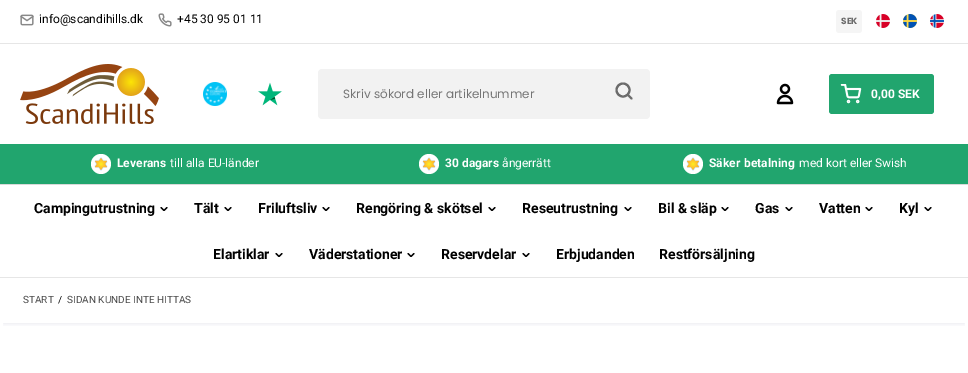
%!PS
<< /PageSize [968 373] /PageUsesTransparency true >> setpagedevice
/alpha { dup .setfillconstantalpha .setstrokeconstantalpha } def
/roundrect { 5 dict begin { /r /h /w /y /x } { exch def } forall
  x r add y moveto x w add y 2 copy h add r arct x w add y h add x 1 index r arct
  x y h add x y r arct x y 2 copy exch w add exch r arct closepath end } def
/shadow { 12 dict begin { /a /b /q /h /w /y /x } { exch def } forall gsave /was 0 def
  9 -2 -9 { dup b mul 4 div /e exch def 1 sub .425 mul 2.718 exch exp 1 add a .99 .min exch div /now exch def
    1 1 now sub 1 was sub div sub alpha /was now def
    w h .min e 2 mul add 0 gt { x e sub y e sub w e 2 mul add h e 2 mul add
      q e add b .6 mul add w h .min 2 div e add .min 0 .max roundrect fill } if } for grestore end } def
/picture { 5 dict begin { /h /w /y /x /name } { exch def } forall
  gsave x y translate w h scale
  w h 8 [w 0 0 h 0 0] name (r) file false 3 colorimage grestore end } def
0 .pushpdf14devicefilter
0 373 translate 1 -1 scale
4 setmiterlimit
1 setgray
0 0 968 373 rectfill
0.902 setgray
0 43 968 1 rectfill
(img1.rgb) 20 14 14 12 picture
/Roboto-Regular [12 0 0 -12 0 0] selectfont
0 setgray
39 23 moveto (info@scandihills.dk) show
(img2.rgb) 158 13 14 14 picture
177 23 moveto (+45 30 95 01 11) show
0.961 setgray
836 10 26 23 3 roundrect fill
/Poppins-Bold [9 0 0 -9 0 0] selectfont
0.424 setgray
841 24 moveto (SEK) show
(img3.rgb) 876 14 14 14 picture
(img4.rgb) 903 14 14 14 picture
(img5.rgb) 930 14 14 14 picture
(img6.rgb) 20 64 139 60 picture
(img7.rgb) 203 82 24 24 picture
(img8.rgb) 258 82 24 24 picture
0.949 setgray
318 69 332 50 4 roundrect fill
/Poppins-Regular [12 0 0 -12 0 0] selectfont
0.459 setgray
343 98 moveto (Skriv sökord eller artikelnummer) show
0.424 setgray
2.1 setlinewidth
newpath 623 90 6.5 0 360 arc closepath stroke
1 setlinecap
1 setlinejoin
newpath 631.5 98.5 moveto 628 95 lineto stroke
(img9.rgb) 776 83 18 22 picture
0.129 0.647 0.431 setrgbcolor
829 74 105 40 3 roundrect fill
(img10.rgb) 840 84 22 20 picture
/Roboto-Bold [12 0 0 -12 0 0] selectfont
1 setgray
871 98 moveto (0,00 SEK) show
0.129 0.647 0.431 setrgbcolor
0 144 968 40 rectfill
1 setgray
newpath 101 164 10 0 360 arc closepath fill
(img11.rgb) 94 157 14 14 picture
117 167 moveto (Leverans) show
/Roboto-Regular [12 0 0 -12 0 0] selectfont
170 167 moveto (till alla EU-länder) show
newpath 429 164 10 0 360 arc closepath fill
(img11.rgb) 422 157 14 14 picture
/Roboto-Bold [12 0 0 -12 0 0] selectfont
445 167 moveto (30 dagars) show
/Roboto-Regular [12 0 0 -12 0 0] selectfont
502 167 moveto (ångerrätt) show
newpath 693 164 10 0 360 arc closepath fill
(img11.rgb) 686 157 14 14 picture
/Roboto-Bold [12 0 0 -12 0 0] selectfont
709 167 moveto (Säker) show
744 167 moveto (betalning) show
/Roboto-Regular [12 0 0 -12 0 0] selectfont
799 167 moveto (med kort eller Swish) show
0.851 setgray
0 184 968 1 rectfill
/Roboto-Bold [14 0 0 -14 0 0] selectfont
0 setgray
34 213 moveto (Campingutrustning) show
1.2 setlinewidth
newpath 161 207.5 moveto 164 210.5 lineto 167 207.5 lineto stroke
194 213 moveto (Tält) show
newpath 225 207.5 moveto 228 210.5 lineto 231 207.5 lineto stroke
258 213 moveto (Friluftsliv) show
newpath 323 207.5 moveto 326 210.5 lineto 329 207.5 lineto stroke
356 213 moveto (Rengöring & skötsel) show
newpath 489 207.5 moveto 492 210.5 lineto 495 207.5 lineto stroke
522 213 moveto (Reseutrustning) show
newpath 625 207.5 moveto 628 210.5 lineto 631 207.5 lineto stroke
658 213 moveto (Bil & släp) show
newpath 722 207.5 moveto 725 210.5 lineto 728 207.5 lineto stroke
755 213 moveto (Gas) show
newpath 786 207.5 moveto 789 210.5 lineto 792 207.5 lineto stroke
819 213 moveto (Vatten) show
newpath 866 207.5 moveto 869 210.5 lineto 872 207.5 lineto stroke
899 213 moveto (Kyl) show
newpath 925 207.5 moveto 928 210.5 lineto 931 207.5 lineto stroke
213 259 moveto (Elartiklar) show
newpath 276 253.5 moveto 279 256.5 lineto 282 253.5 lineto stroke
309 259 moveto (Väderstationer) show
newpath 408 253.5 moveto 411 256.5 lineto 414 253.5 lineto stroke
441 259 moveto (Reservdelar) show
newpath 523 253.5 moveto 526 256.5 lineto 529 253.5 lineto stroke
556 259 moveto (Erbjudanden) show
659 259 moveto (Restförsäljning) show
gsave
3 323 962 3 rectclip
0.196 0.196 0.365 setrgbcolor
4 284 960 38 0 3 0.2 shadow
grestore
0.902 setgray
0 277 968 1 rectfill
/Roboto-Regular [10 0 0 -10 0 0] selectfont
0.29 setgray
23 303 moveto (START) show
0 setgray
58 303 moveto (/) show
0.29 setgray
67 303 moveto (SIDAN KUNDE INTE HITTAS) show
.poppdf14devicefilter showpage
